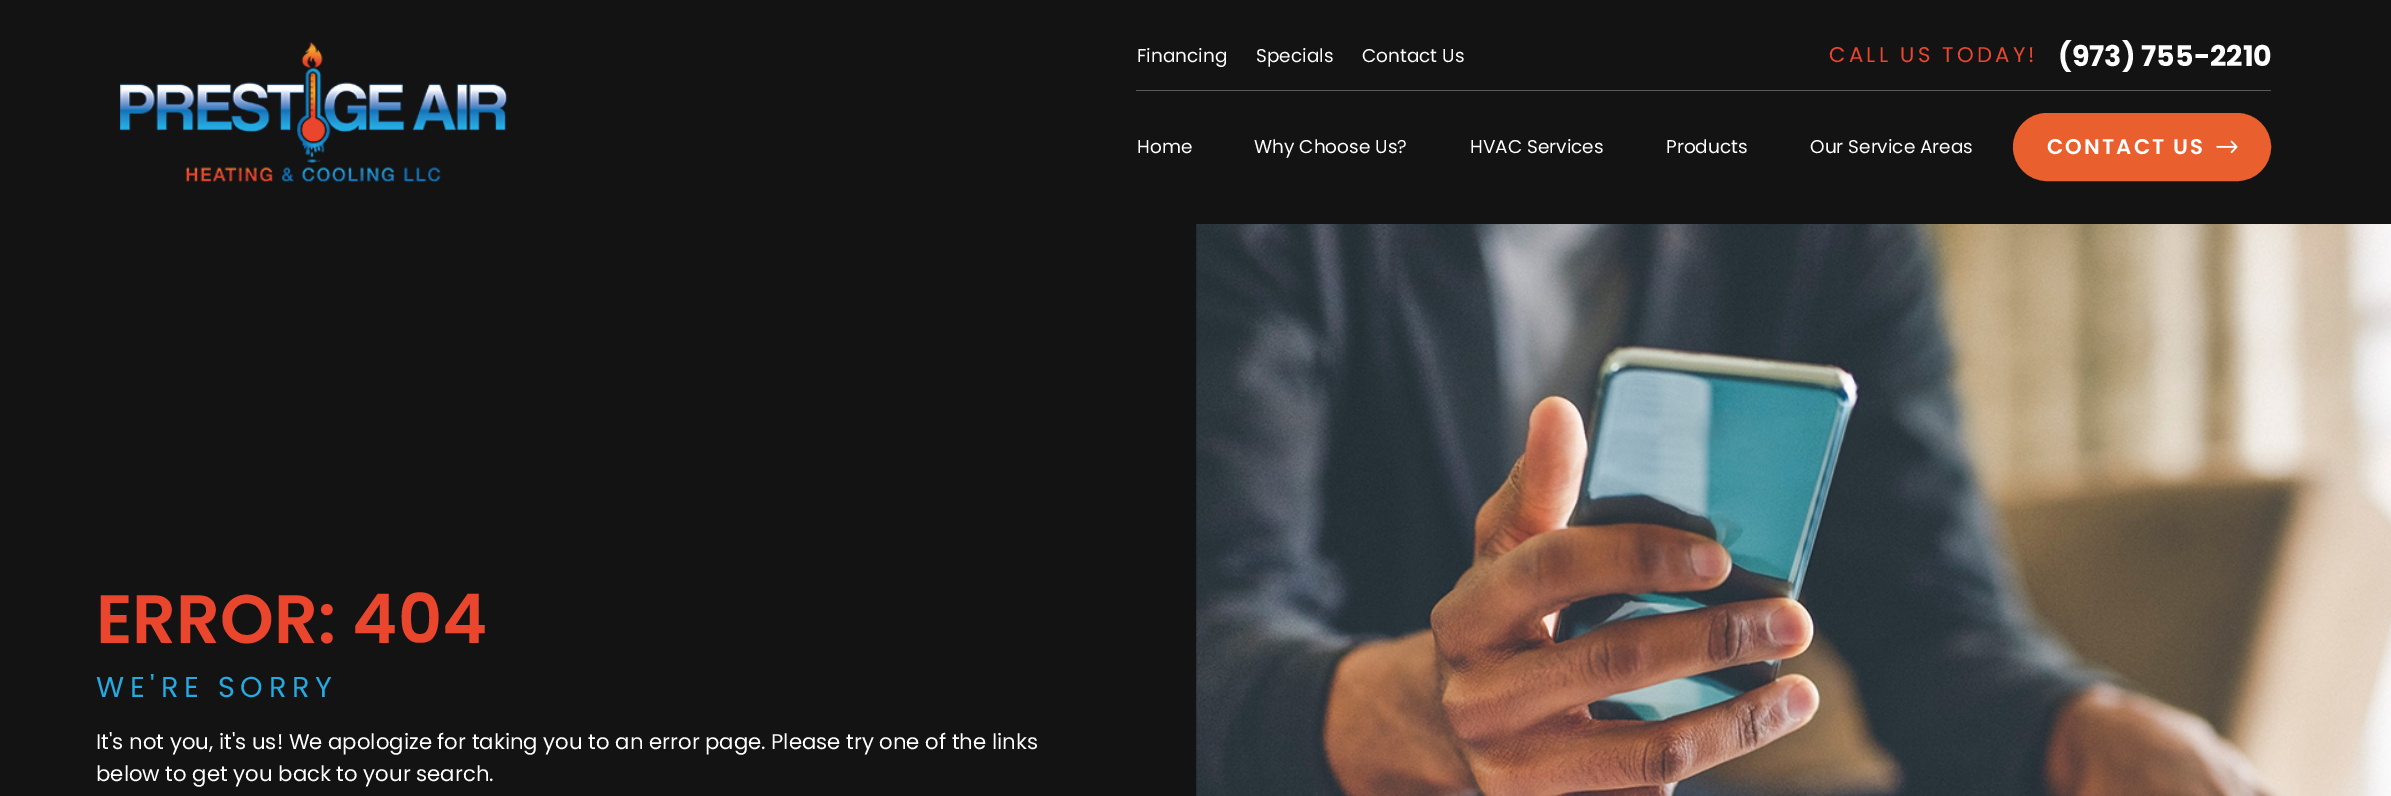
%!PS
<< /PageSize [2391 796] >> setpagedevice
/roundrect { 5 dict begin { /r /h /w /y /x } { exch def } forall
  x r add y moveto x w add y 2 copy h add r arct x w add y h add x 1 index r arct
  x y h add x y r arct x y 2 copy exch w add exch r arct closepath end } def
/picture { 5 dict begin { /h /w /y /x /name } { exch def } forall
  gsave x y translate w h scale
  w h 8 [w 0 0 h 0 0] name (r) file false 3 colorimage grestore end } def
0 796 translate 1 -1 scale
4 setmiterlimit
0.078 0.075 0.075 setrgbcolor
0 0 2391 796 rectfill
(img1.rgb) 120 42 387 140 picture
0.357 0.353 0.353 setrgbcolor
1136 90 1135 1 rectfill
/Poppins-Regular [18.5 0 0 -18.5 0 0] selectfont
1 setgray
1137 62 moveto (Financing) show
1256 62 moveto (Specials) show
1362 62 moveto (Contact Us) show
/Poppins-Regular [21.25 0 0 -21.25 0 0] selectfont
0.918 0.275 0.18 setrgbcolor
1829 62 moveto 3.25 0 (CALL US TODAY!) ashow
/Poppins-Bold [28.5 0 0 -28.5 0 0] selectfont
1 setgray
2058 66 moveto (\(973\) 755-2210) show
/Poppins-Regular [18.5 0 0 -18.5 0 0] selectfont
1137 153 moveto (Home) show
1254 153 moveto (Why Choose Us?) show
1470 153 moveto (HVAC Services) show
1666 153 moveto (Products) show
1810 153 moveto (Our Service Areas) show
0.918 0.373 0.18 setrgbcolor
2014.5 114.5 255 65 32.5 roundrect gsave fill grestore
3 setlinewidth
stroke
/Poppins-SemiBold [21.25 0 0 -21.25 0 0] selectfont
1 setgray
2047 154 moveto 2.1 0 (CONTACT US) ashow
(img2.rgb) 2216 140 22 14 picture
/Poppins-SemiBold [68.5 0 0 -68.5 0 0] selectfont
0.918 0.275 0.18 setrgbcolor
96 643 moveto (ERROR: 404) show
/Poppins-Regular [28.75 0 0 -28.75 0 0] selectfont
0.137 0.667 0.882 setrgbcolor
96 697 moveto 5.75 0 (WE'RE SORRY) ashow
/Poppins-Regular [21.25 0 0 -21.25 0 0] selectfont
1 setgray
96 749 moveto (It's not you, it's us! We apologize for taking you to an error page.) show
771 749 moveto (Please try one of the links) show
96 781 moveto (below to get you back to your search.) show
(img3.rgb) 1196 224 1195 572 picture
showpage
